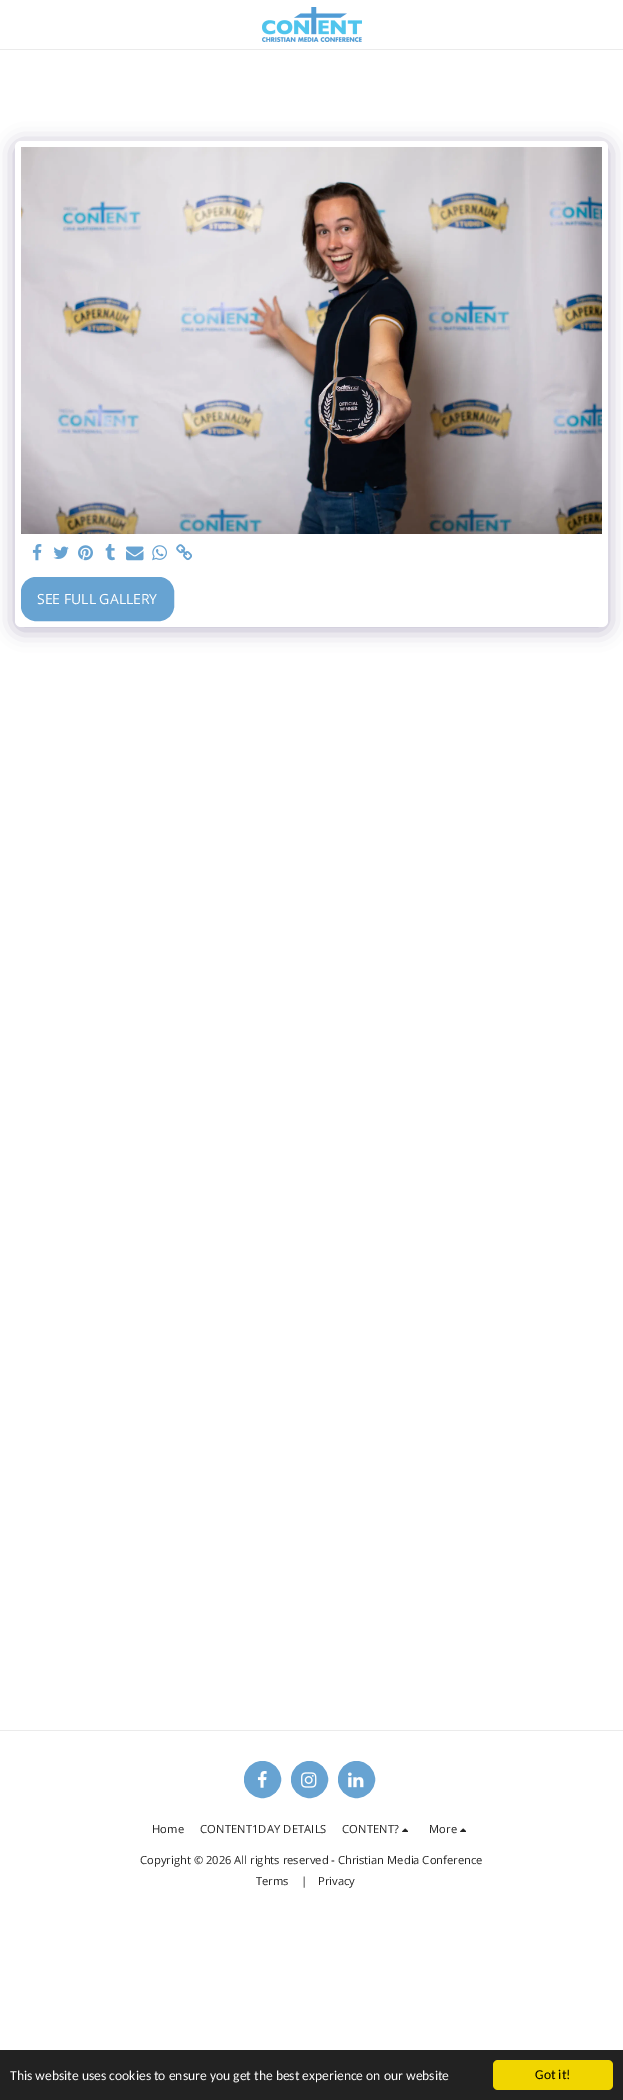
%!PS
<< /PageSize [623 2100] /PageUsesTransparency true >> setpagedevice
/alpha { dup .setfillconstantalpha .setstrokeconstantalpha } def
/roundrect { 5 dict begin { /r /h /w /y /x } { exch def } forall
  x r add y moveto x w add y 2 copy h add r arct x w add y h add x 1 index r arct
  x y h add x y r arct x y 2 copy exch w add exch r arct closepath end } def
/shadow { 12 dict begin { /a /b /q /h /w /y /x } { exch def } forall gsave /was 0 def
  9 -2 -9 { dup b mul 4 div /e exch def 1 sub .425 mul 2.718 exch exp 1 add a .99 .min exch div /now exch def
    1 1 now sub 1 was sub div sub alpha /was now def
    w h .min e 2 mul add 0 gt { x e sub y e sub w e 2 mul add h e 2 mul add
      q e add b .6 mul add w h .min 2 div e add .min 0 .max roundrect fill } if } for grestore end } def
/picture { 5 dict begin { /h /w /y /x /name } { exch def } forall
  gsave x y translate w h scale
  w h 8 [w 0 0 h 0 0] name (r) file false 3 colorimage grestore end } def
0 .pushpdf14devicefilter
0 2100 translate 1 -1 scale
4 setmiterlimit
1 setgray
0 0 623 2100 rectfill
0.922 setgray
0 49 623 1 rectfill
(img1.rgb) 262 7 100 35 picture
0.302 0.247 0.478 setrgbcolor
15 144 593 486 6 10 0.4 shadow
1 setgray
15 141 593 486 6 roundrect fill
(img2.rgb) 21 147 581 387 picture
(img3.rgb) 32 544 10 17 picture
(img4.rgb) 53 546 16 13 picture
(img5.rgb) 78 545 15 16 picture
(img6.rgb) 105 544 10 17 picture
(img7.rgb) 126 546 18 15 picture
(img8.rgb) 152 545 15 16 picture
(img9.rgb) 176 544 16 17 picture
0.404 0.639 0.824 setrgbcolor
21.5 577.5 152 43 14.5 roundrect gsave fill grestore
stroke
/OpenSans-Regular [14 0 0 -14 0 0] selectfont
1 setgray
37 604 moveto (SEE FULL GALLERY) show
0.922 setgray
0 1730 623 1 rectfill
0.404 0.639 0.824 setrgbcolor
newpath 262.5 1779.5 18 0 360 arc closepath gsave fill grestore
stroke
(img10.rgb) 257 1771 10 17 picture
newpath 309.5 1779.5 18 0 360 arc closepath gsave fill grestore
stroke
(img11.rgb) 301 1772 16 16 picture
newpath 356.5 1779.5 18 0 360 arc closepath gsave fill grestore
stroke
(img12.rgb) 348 1772 16 16 picture
/OpenSans-Regular [11.2 0 0 -11.2 0 0] selectfont
0.145 setgray
152 1833 moveto 0.1 0 (Home) ashow
200 1833 moveto 0.1 0 (CONTENT1DAY DETAILS) ashow
342 1833 moveto 0.1 0 (CONTENT?) ashow
(img13.rgb) 402 1828 6 4 picture
429 1833 moveto 0.1 0 (More) ashow
(img13.rgb) 460 1828 6 4 picture
140 1864 moveto (Copyright © 2026 All rights reserved - Christian Media Conference) show
256 1885 moveto (Terms) show
301 1885 moveto (|) show
318 1885 moveto (Privacy) show
0.133 setgray
0 2050 623 50 rectfill
/Carlito-Regular [13.6 0 0 -13.6 0 0] selectfont
1 setgray
10 2080 moveto (This website uses cookies to ensure you get the best experience on our website) show
0.945 0.839 0 setrgbcolor
493 2060 120 30 5 roundrect fill
0 setgray
535 2079 moveto (Got it!) show
.poppdf14devicefilter showpage
